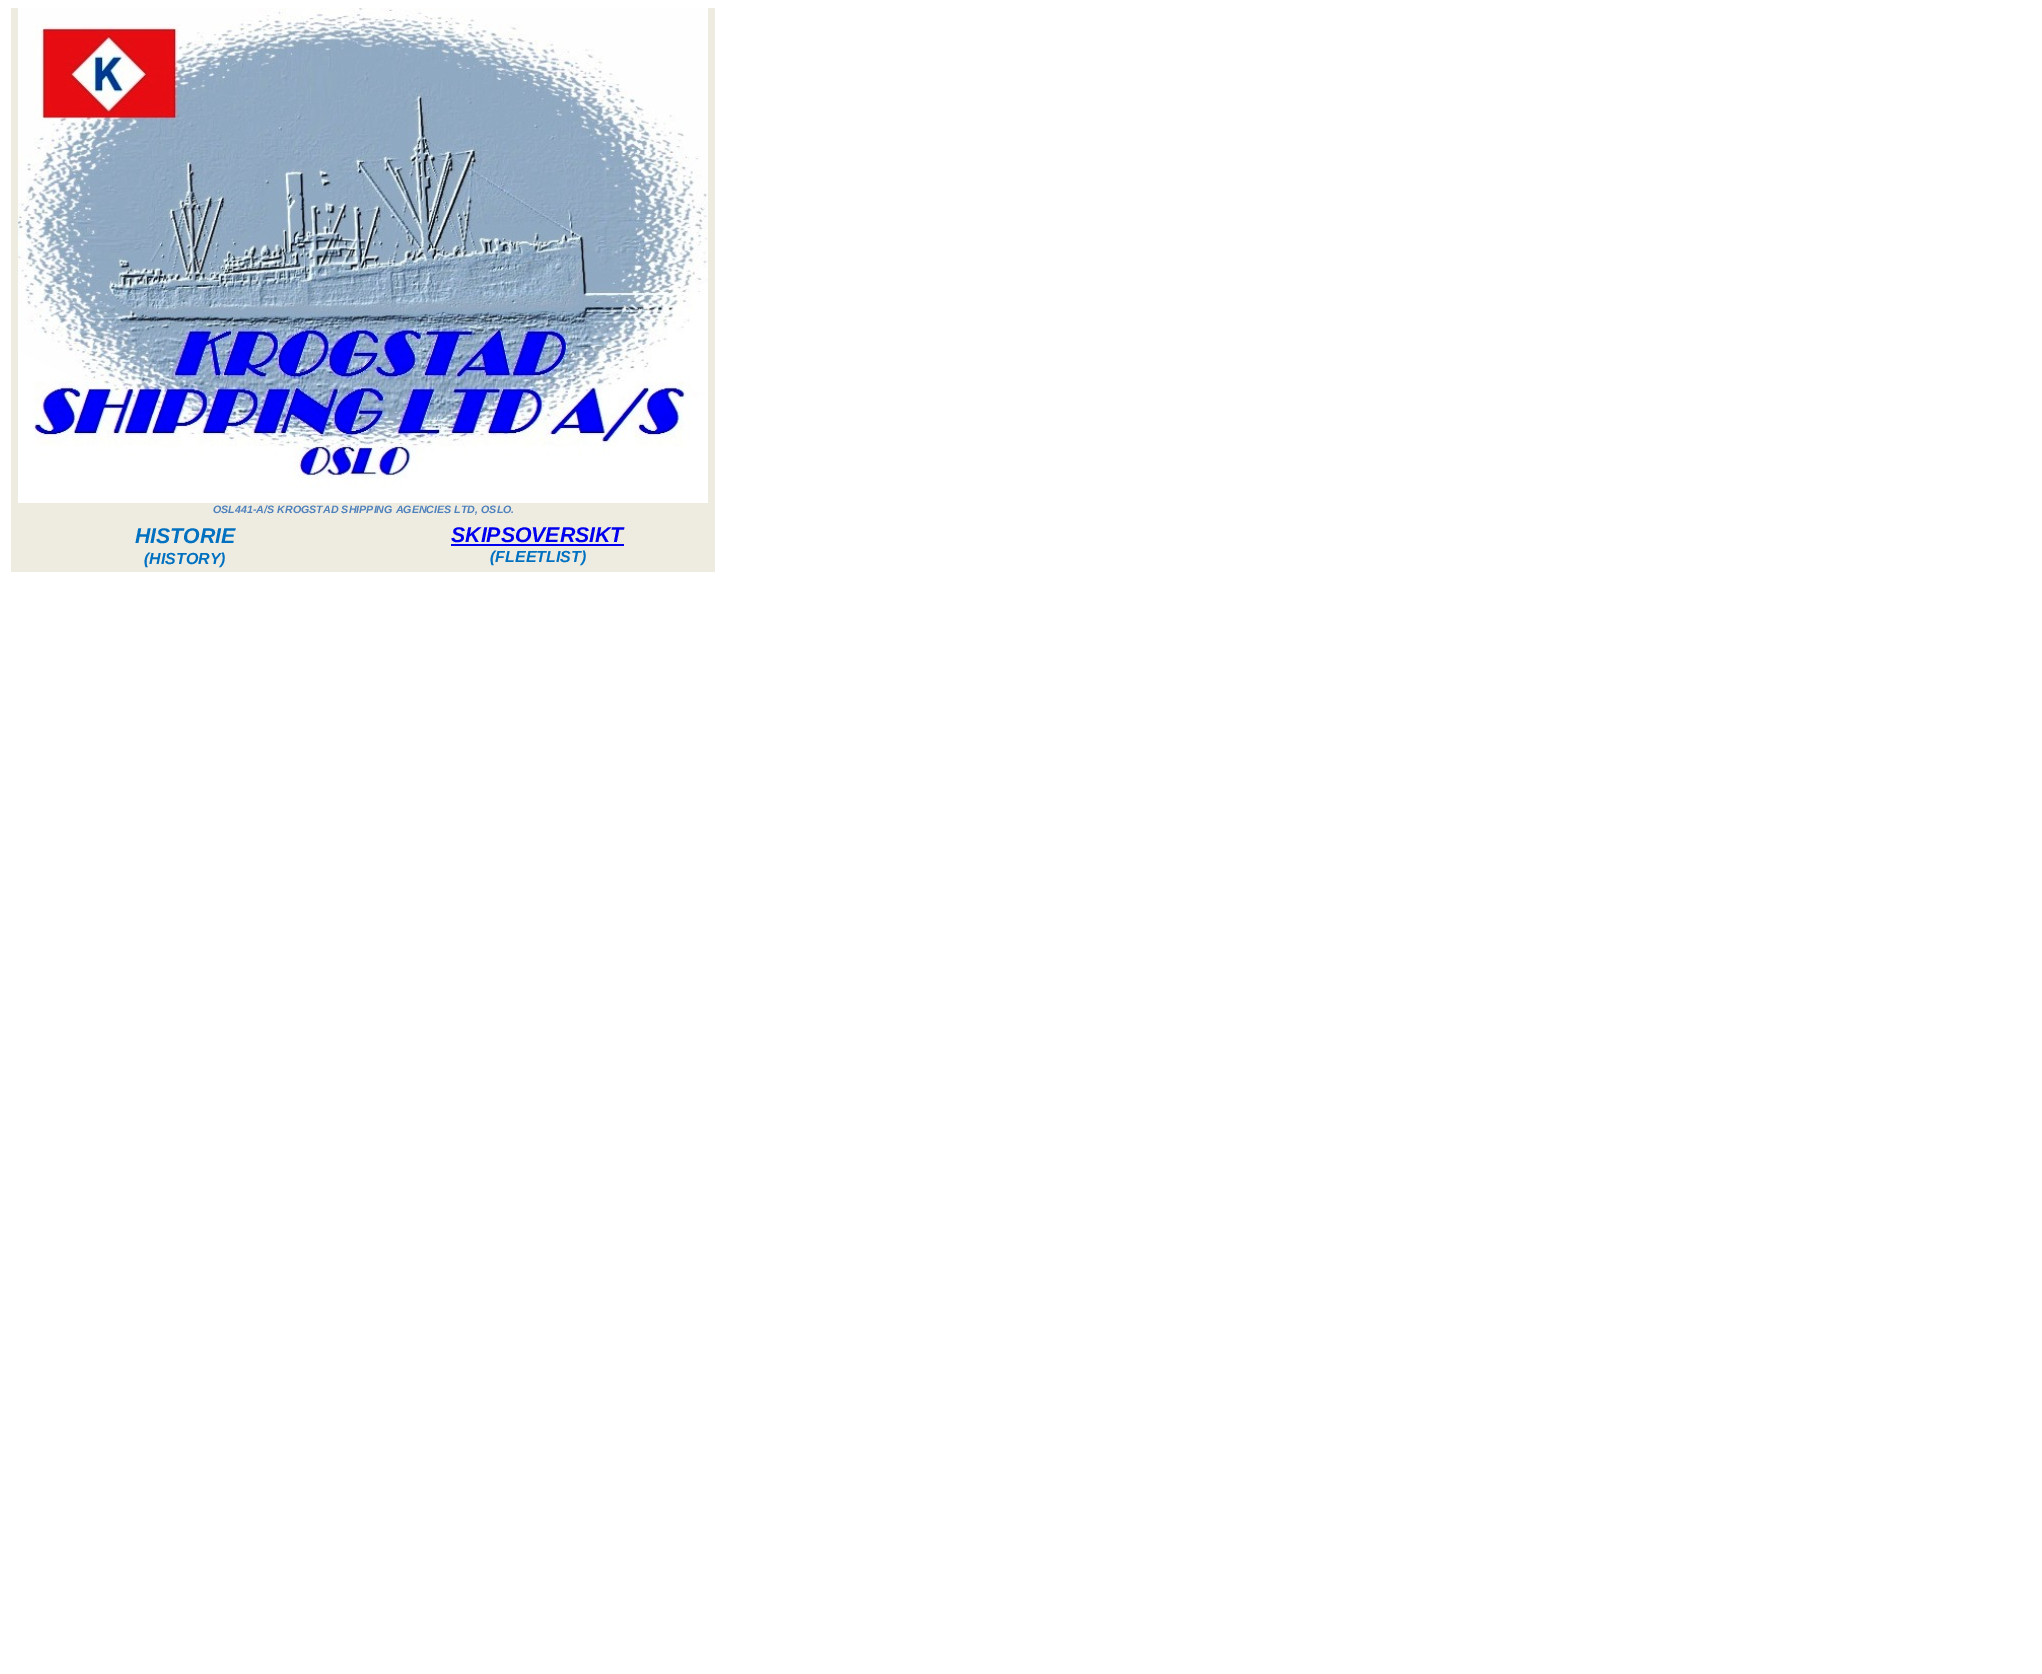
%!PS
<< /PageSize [2042 1674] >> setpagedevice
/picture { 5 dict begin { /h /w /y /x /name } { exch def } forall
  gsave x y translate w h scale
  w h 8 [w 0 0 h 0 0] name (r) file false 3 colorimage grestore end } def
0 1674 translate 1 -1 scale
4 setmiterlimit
1 setgray
0 0 2042 1674 rectfill
0.933 0.925 0.882 setrgbcolor
11 8 704 507 rectfill
(img1.rgb) 18 8 690 495 picture
/LiberationSans-BoldItalic [10.7 0 0 -10.7 0 0] selectfont
0.31 0.506 0.741 setrgbcolor
213 513 moveto (OSL441-A/S KROGSTAD SHIPPING AGENCIES LTD, OSLO.) show
0.933 0.925 0.882 setrgbcolor
11 515 704 57 rectfill
/LiberationSans-BoldItalic [21.25 0 0 -21.25 0 0] selectfont
0 0.439 0.753 setrgbcolor
135 543 moveto (HISTORIE) show
/LiberationSans-BoldItalic [16 0 0 -16 0 0] selectfont
144 564 moveto (\(HISTORY\)) show
/LiberationSans-BoldItalic [21.25 0 0 -21.25 0 0] selectfont
0 0 0.933 setrgbcolor
451 542 moveto (SKIPSOVERSIKT) show
451 544 173 2 rectfill
/LiberationSans-BoldItalic [16 0 0 -16 0 0] selectfont
0 0.439 0.753 setrgbcolor
490 562 moveto (\(FLEETLIST\)) show
showpage
